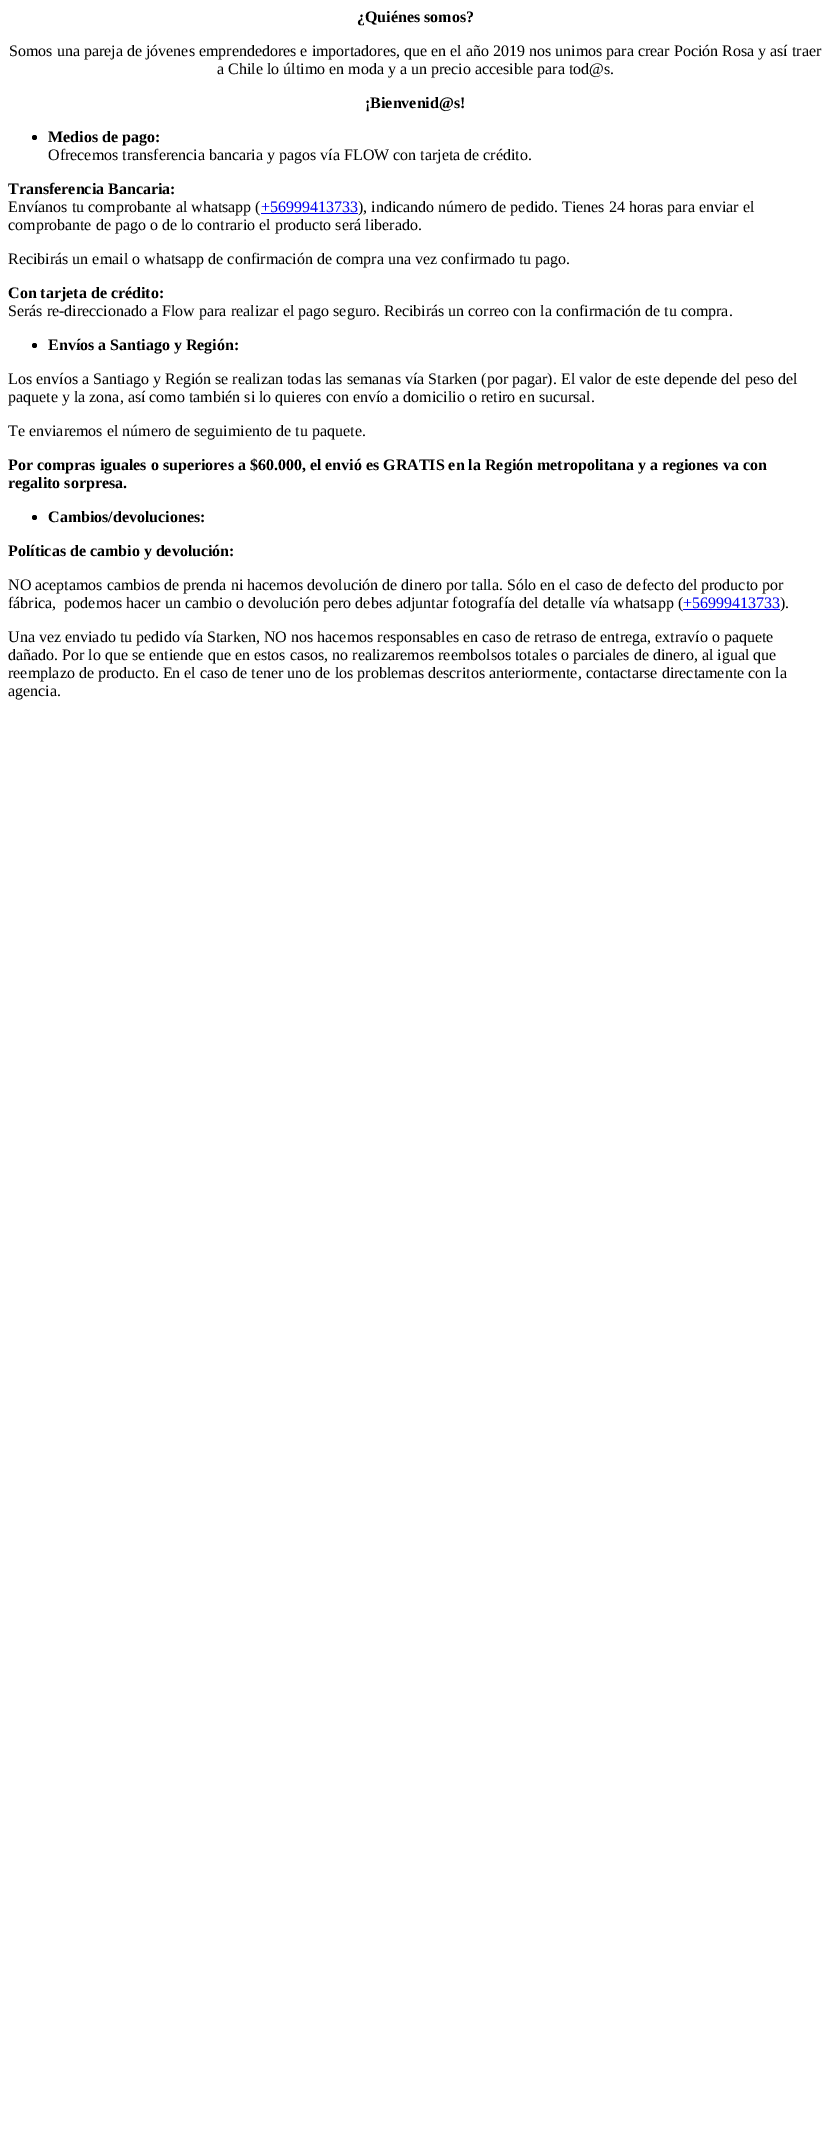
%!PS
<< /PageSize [831 2153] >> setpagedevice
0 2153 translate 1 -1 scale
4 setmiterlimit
1 setgray
0 0 831 2153 rectfill
/LiberationSerif-Bold [16 0 0 -16 0 0] selectfont
0 setgray
357 22 moveto (¿Quiénes somos?) show
/LiberationSerif-Regular [16 0 0 -16 0 0] selectfont
9 56 moveto (Somos una pareja de jóvenes emprendedores e importadores, que en el año 2019 nos unimos para crear Poción Rosa y así traer) show
217 74 moveto (a Chile lo último en moda y a un precio accesible para tod@s.) show
/LiberationSerif-Bold [16 0 0 -16 0 0] selectfont
365 108 moveto (¡Bienvenid@s!) show
newpath 34.5 137.5 2.5 0 360 arc closepath fill
48 142 moveto (Medios de pago:) show
/LiberationSerif-Regular [16 0 0 -16 0 0] selectfont
48 160 moveto (Ofrecemos transferencia bancaria y pagos vía FLOW con tarjeta de crédito.) show
/LiberationSerif-Bold [16 0 0 -16 0 0] selectfont
8 194 moveto (Transferencia Bancaria:) show
/LiberationSerif-Regular [16 0 0 -16 0 0] selectfont
8 212 moveto (Envíanos tu comprobante al whatsapp \() show
0 0 0.933 setrgbcolor
261 212 moveto (+56999413733) show
261 213 97 1 rectfill
0 setgray
358 212 moveto (\), indicando número de pedido. Tienes 24 horas para enviar el) show
8 230 moveto (comprobante de pago o de lo contrario el producto será liberado.) show
8 264 moveto (Recibirás un email o whatsapp de confirmación de compra una vez confirmado tu pago.) show
/LiberationSerif-Bold [16 0 0 -16 0 0] selectfont
8 298 moveto (Con tarjeta de crédito:) show
/LiberationSerif-Regular [16 0 0 -16 0 0] selectfont
8 316 moveto (Serás re-direccionado a Flow para realizar el pago seguro. Recibirás un correo con la confirmación de tu compra.) show
newpath 34.5 345.5 2.5 0 360 arc closepath fill
/LiberationSerif-Bold [16 0 0 -16 0 0] selectfont
48 350 moveto (Envíos a Santiago y Región:) show
/LiberationSerif-Regular [16 0 0 -16 0 0] selectfont
8 384 moveto (Los envíos a Santiago y Región se realizan todas las semanas vía Starken \(por pagar\). El valor de este depende del peso del) show
8 402 moveto (paquete y la zona, así como también si lo quieres con envío a domicilio o retiro en sucursal.) show
8 436 moveto (Te enviaremos el número de seguimiento de tu paquete.) show
/LiberationSerif-Bold [16 0 0 -16 0 0] selectfont
8 470 moveto (Por compras iguales o superiores a $60.000, el envió es GRATIS en la Región metropolitana y a regiones va con) show
8 488 moveto (regalito sorpresa.) show
newpath 34.5 517.5 2.5 0 360 arc closepath fill
48 522 moveto (Cambios/devoluciones:) show
8 556 moveto (Políticas de cambio y devolución:) show
/LiberationSerif-Regular [16 0 0 -16 0 0] selectfont
8 590 moveto (NO aceptamos cambios de prenda ni hacemos devolución de dinero por talla. Sólo en el caso de defecto del producto por) show
8 608 moveto (fábrica,  podemos hacer un cambio o devolución pero debes adjuntar fotografía del detalle vía whatsapp \() show
0 0 0.933 setrgbcolor
683 608 moveto (+56999413733) show
683 609 97 1 rectfill
0 setgray
780 608 moveto (\).) show
8 642 moveto (Una vez enviado tu pedido vía Starken, NO nos hacemos responsables en caso de retraso de entrega, extravío o paquete) show
8 660 moveto (dañado. Por lo que se entiende que en estos casos, no realizaremos reembolsos totales o parciales de dinero, al igual que) show
8 678 moveto (reemplazo de producto. En el caso de tener uno de los problemas descritos anteriormente, contactarse directamente con la) show
8 696 moveto (agencia.) show
showpage
